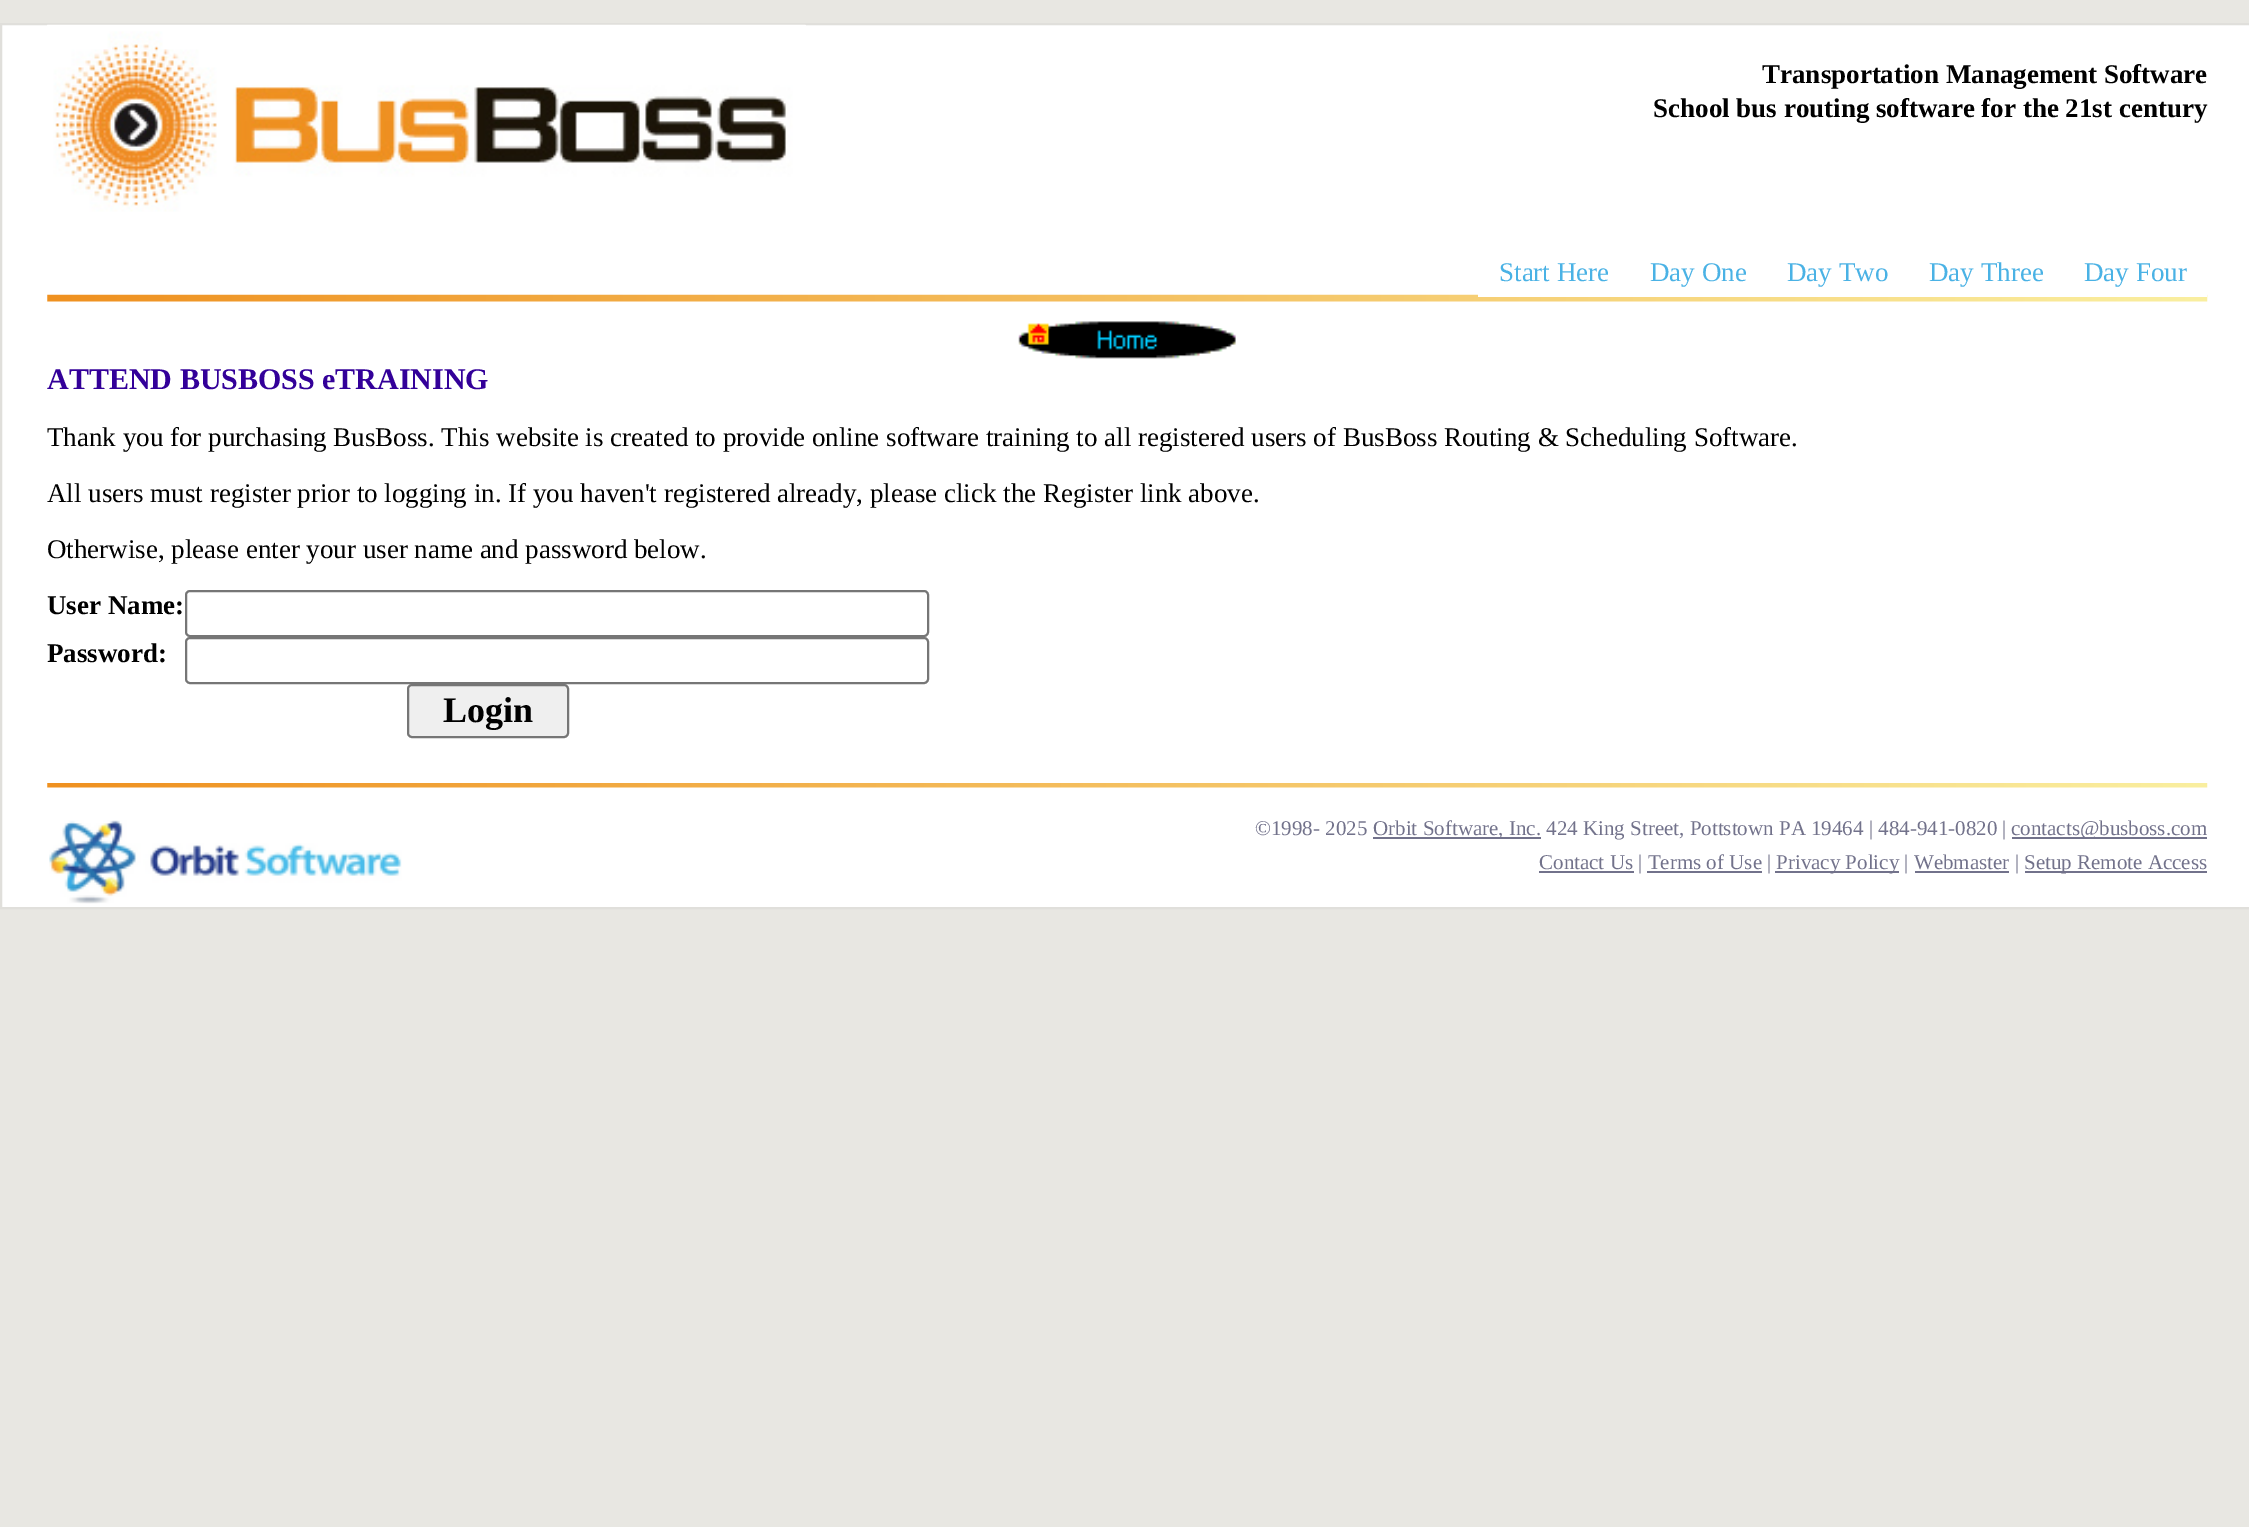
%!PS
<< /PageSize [2249 1527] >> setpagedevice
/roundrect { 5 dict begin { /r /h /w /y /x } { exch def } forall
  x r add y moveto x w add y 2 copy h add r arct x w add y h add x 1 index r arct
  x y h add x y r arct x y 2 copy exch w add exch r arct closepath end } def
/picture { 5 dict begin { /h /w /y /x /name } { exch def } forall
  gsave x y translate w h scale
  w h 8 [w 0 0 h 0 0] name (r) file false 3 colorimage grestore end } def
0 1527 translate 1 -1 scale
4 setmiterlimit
0.91 0.906 0.886 setrgbcolor
0 0 2249 1527 rectfill
1 setgray
newpath 1 24 moveto 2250 24 lineto 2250 908 lineto 1 908 lineto closepath gsave fill grestore
0.878 0.875 0.859 setrgbcolor
2 setlinewidth
stroke
(img1.rgb) 47 24 759 188 picture
/LiberationSerif-Bold [27 0 0 -27 0 0] selectfont
0 setgray
1762 83 moveto (Transportation Management Software) show
1653 117 moveto (School bus routing software for the 21st century) show
(img2.rgb) 47 294 2161 8 picture
1 setgray
1478 294 729 3 rectfill
/LiberationSerif-Regular [27 0 0 -27 0 0] selectfont
0.29 0.698 0.898 setrgbcolor
1499 281 moveto (Start Here) show
1650 281 moveto (Day One) show
1787 281 moveto (Day Two) show
1929 281 moveto (Day Three) show
2084 281 moveto (Day Four) show
(img3.rgb) 1018 321 218 38 picture
/LiberationSerif-Bold [30 0 0 -30 0 0] selectfont
0.2 0 0.6 setrgbcolor
47 389 moveto (ATTEND BUSBOSS eTRAINING) show
/LiberationSerif-Regular [27 0 0 -27 0 0] selectfont
0 setgray
47 446 moveto (Thank you for purchasing BusBoss. This website is created to provide online software training to all registered users of BusBoss Routing & Scheduling Software.) show
47 502 moveto (All users must register prior to logging in. If you haven't registered already, please click the Register link above.) show
47 558 moveto (Otherwise, please enter your user name and password below.) show
/LiberationSerif-Bold [27 0 0 -27 0 0] selectfont
47 614 moveto (User Name:) show
0.463 setgray
186 591 742 45 4 roundrect stroke
0 setgray
47 662 moveto (Password:) show
0.463 setgray
186 638 742 45 4 roundrect stroke
0.937 setgray
408 685 160 52 4 roundrect gsave fill grestore
0.463 setgray
stroke
/LiberationSerif-Bold [36 0 0 -36 0 0] selectfont
0 setgray
443 722 moveto (Login) show
(img4.rgb) 47 783 2161 5 picture
(img5.rgb) 49 820 353 84 picture
/LiberationSerif-Regular [21 0 0 -21 0 0] selectfont
0.447 0.447 0.545 setrgbcolor
1255 835 moveto (©1998- 2025) show
1373 837 168 2 rectfill
1373 835 moveto (Orbit Software, Inc. 424 King Street, Pottstown PA 19464 | 484-941-0820 |) show
2012 837 195 2 rectfill
2011 835 moveto (contacts@busboss.com) show
1539 871 95 2 rectfill
1539 869 moveto (Contact Us | Terms of Use |) show
1775 871 124 2 rectfill
1776 869 moveto (Privacy Policy | Webmaster |) show
2025 871 182 2 rectfill
2024 869 moveto (Setup Remote Access) show
1647 871 115 2 rectfill
1915 871 94 2 rectfill
showpage
